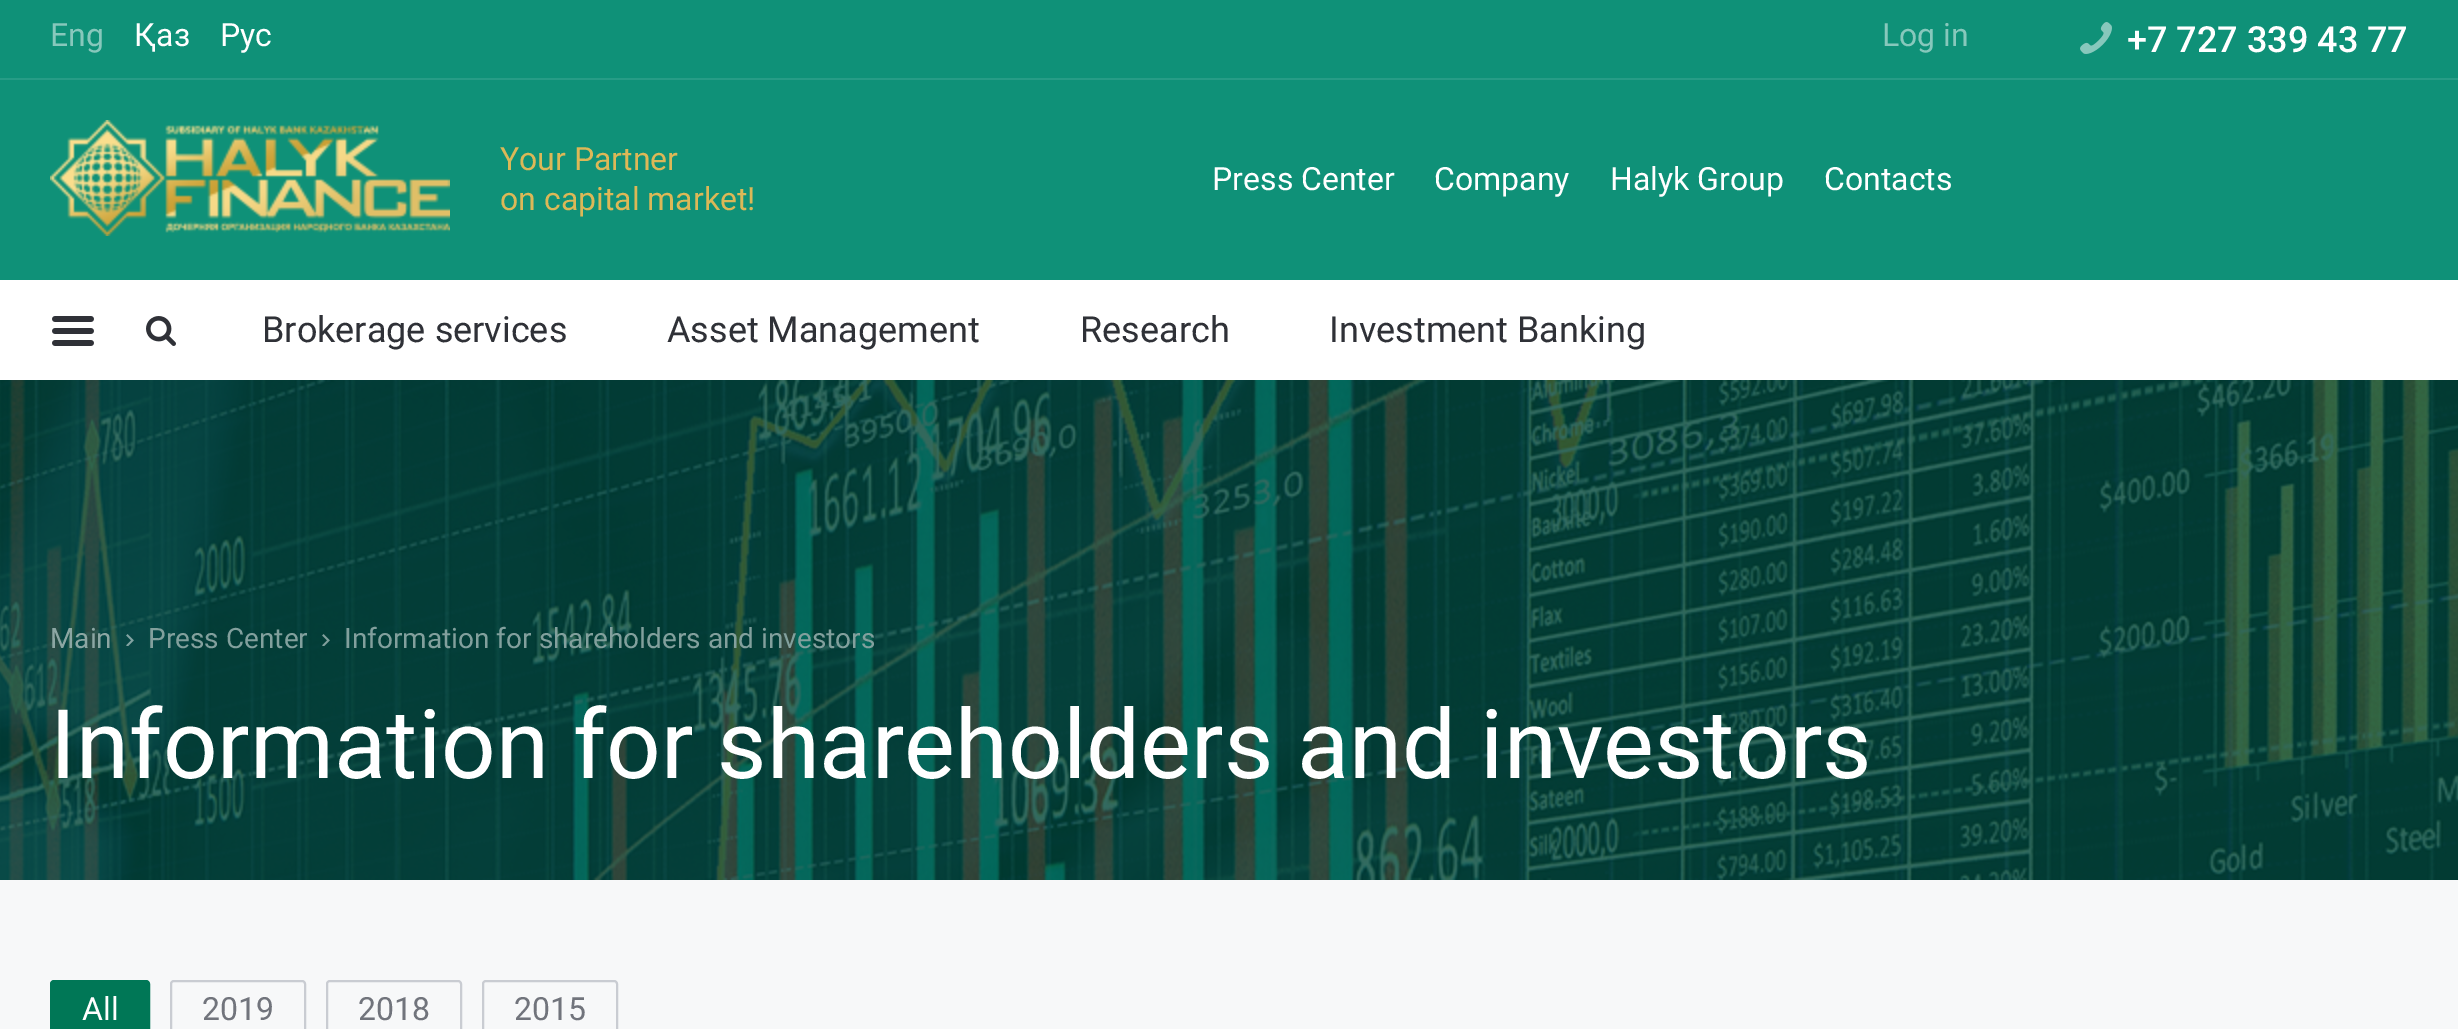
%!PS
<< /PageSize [2458 1029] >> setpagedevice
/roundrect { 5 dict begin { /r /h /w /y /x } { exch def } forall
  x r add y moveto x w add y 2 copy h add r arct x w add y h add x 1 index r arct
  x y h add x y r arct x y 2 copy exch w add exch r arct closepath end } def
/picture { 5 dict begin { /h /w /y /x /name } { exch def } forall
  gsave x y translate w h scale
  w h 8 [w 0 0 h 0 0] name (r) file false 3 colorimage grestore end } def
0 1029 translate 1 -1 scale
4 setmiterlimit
0.969 0.973 0.976 setrgbcolor
0 0 2458 1029 rectfill
0.059 0.569 0.471 setrgbcolor
0 0 2458 280 rectfill
0.153 0.612 0.525 setrgbcolor
0 78 2458 2 rectfill
/Roboto-Regular [32 0 0 -32 0 0] selectfont
0.529 0.784 0.737 setrgbcolor
50 46 moveto (Eng) show
1 setgray
134 46 moveto (Қаз) show
220 46 moveto (Рус) show
0.529 0.784 0.737 setrgbcolor
1882 46 moveto (Log in) show
(img1.rgb) 2080 22 32 32 picture
/Roboto-Medium [36 0 0 -36 0 0] selectfont
1 setgray
2127 52 moveto (+7 727 339 43 77) show
(img2.rgb) 50 120 400 116 picture
/Roboto-Regular [32 0 0 -32 0 0] selectfont
0.863 0.722 0.341 setrgbcolor
500 170 moveto (Your Partner) show
500 210 moveto (on capital market!) show
1 setgray
1212 190 moveto (Press Center) show
1434 190 moveto (Company) show
1610 190 moveto (Halyk Group) show
1824 190 moveto (Contacts) show
0 280 2458 100 rectfill
(img3.rgb) 52 316 42 30 picture
(img4.rgb) 146 316 30 30 picture
/Roboto-Regular [36 0 0 -36 0 0] selectfont
0.184 0.192 0.216 setrgbcolor
262 342 moveto (Brokerage services) show
667 342 moveto (Asset Management) show
1080 342 moveto (Research) show
1329 342 moveto (Investment Banking) show
(img5.rgb) 0 380 2458 500 picture
/Roboto-Regular [28 0 0 -28 0 0] selectfont
0.549 0.651 0.639 setrgbcolor
50 648 moveto (Main) show
(img6.rgb) 126 634 8 12 picture
0.51 0.627 0.616 setrgbcolor
148 648 moveto (Press Center) show
(img7.rgb) 322 634 8 12 picture
344 648 moveto (Information for shareholders and investors) show
/Roboto-Regular [96 0 0 -96 0 0] selectfont
1 setgray
50 778 moveto (Information for shareholders and investors) show
0 0.467 0.337 setrgbcolor
51 981 98 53 3 roundrect gsave fill grestore
2 setlinewidth
stroke
/Roboto-Regular [32 0 0 -32 0 0] selectfont
1 setgray
82 1020 moveto (All) show
0.788 0.8 0.824 setrgbcolor
171 981 134 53 3 roundrect stroke
0.443 0.455 0.486 setrgbcolor
202 1020 moveto (2019) show
0.788 0.8 0.824 setrgbcolor
327 981 134 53 3 roundrect stroke
0.443 0.455 0.486 setrgbcolor
358 1020 moveto (2018) show
0.788 0.8 0.824 setrgbcolor
483 981 134 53 3 roundrect stroke
0.443 0.455 0.486 setrgbcolor
514 1020 moveto (2015) show
showpage
